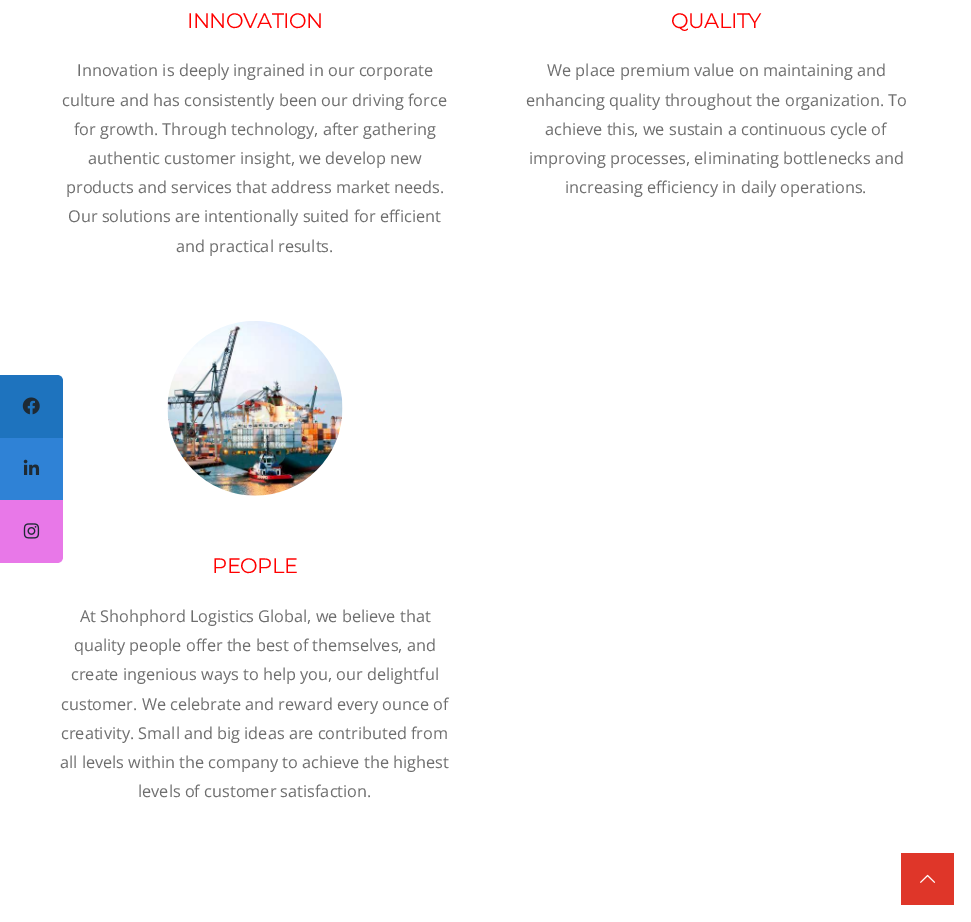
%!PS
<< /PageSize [971 922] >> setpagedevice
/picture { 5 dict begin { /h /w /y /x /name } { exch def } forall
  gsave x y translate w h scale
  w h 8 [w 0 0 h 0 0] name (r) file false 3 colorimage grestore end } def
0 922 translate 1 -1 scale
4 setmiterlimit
1 setgray
0 0 971 922 rectfill
0.118 0.451 0.745 setrgbcolor
newpath 0 375 moveto 57 375 lineto 60.5 375 63 377.5 63 381 curveto 63 438 lineto 0 438 lineto closepath fill
(img1.rgb) 22 397 18 18 picture
0.184 0.51 0.839 setrgbcolor
0 438 63 62 rectfill
(img2.rgb) 23 459 17 16 picture
0.91 0.471 0.91 setrgbcolor
newpath 0 500 moveto 63 500 lineto 63 557 lineto 63 560.5 60.5 563 57 563 curveto 0 563 lineto closepath fill
(img3.rgb) 23 523 17 16 picture
/Montserrat-Regular [21 0 0 -21 0 0] selectfont
1 0 0 setrgbcolor
187 28 moveto -0.5 0 (INNOVATION) ashow
/OpenSans-Regular [16.3 0 0 -16.3 0 0] selectfont
0.431 setgray
77 76 moveto (Innovation is deeply ingrained in our corporate) show
62 106 moveto (culture and has consistently been our driving force) show
74 135 moveto (for growth. Through technology, after gathering) show
88 164 moveto (authentic customer insight, we develop new) show
66 193 moveto (products and services that address market needs.) show
68 222 moveto (Our solutions are intentionally suited for efficient) show
176 252 moveto (and practical results.) show
/Montserrat-Regular [21 0 0 -21 0 0] selectfont
1 0 0 setrgbcolor
671 28 moveto -0.5 0 (QUALITY) ashow
/OpenSans-Regular [16.3 0 0 -16.3 0 0] selectfont
0.431 setgray
547 76 moveto (We place premium value on maintaining and) show
526 106 moveto (enhancing quality throughout the organization. To) show
545 135 moveto (achieve this, we sustain a continuous cycle of) show
529 164 moveto (improving processes, eliminating bottlenecks and) show
565 193 moveto (increasing efficiency in daily operations.) show
(img4.rgb) 167 321 176 175 picture
/Montserrat-Regular [21 0 0 -21 0 0] selectfont
1 0 0 setrgbcolor
212 573 moveto -0.5 0 (PEOPLE) ashow
/OpenSans-Regular [16.3 0 0 -16.3 0 0] selectfont
0.431 setgray
80 622 moveto (At Shohphord Logistics Global, we believe that) show
74 651 moveto (quality people offer the best of themselves, and) show
71 680 moveto (create ingenious ways to help you, our delightful) show
61 710 moveto (customer. We celebrate and reward every ounce of) show
61 739 moveto (creativity. Small and big ideas are contributed from) show
60 768 moveto (all levels within the company to achieve the highest) show
138 797 moveto (levels of customer satisfaction.) show
0.875 0.212 0.161 setrgbcolor
901 853 53 52 rectfill
(img5.rgb) 920 874 16 9 picture
showpage
